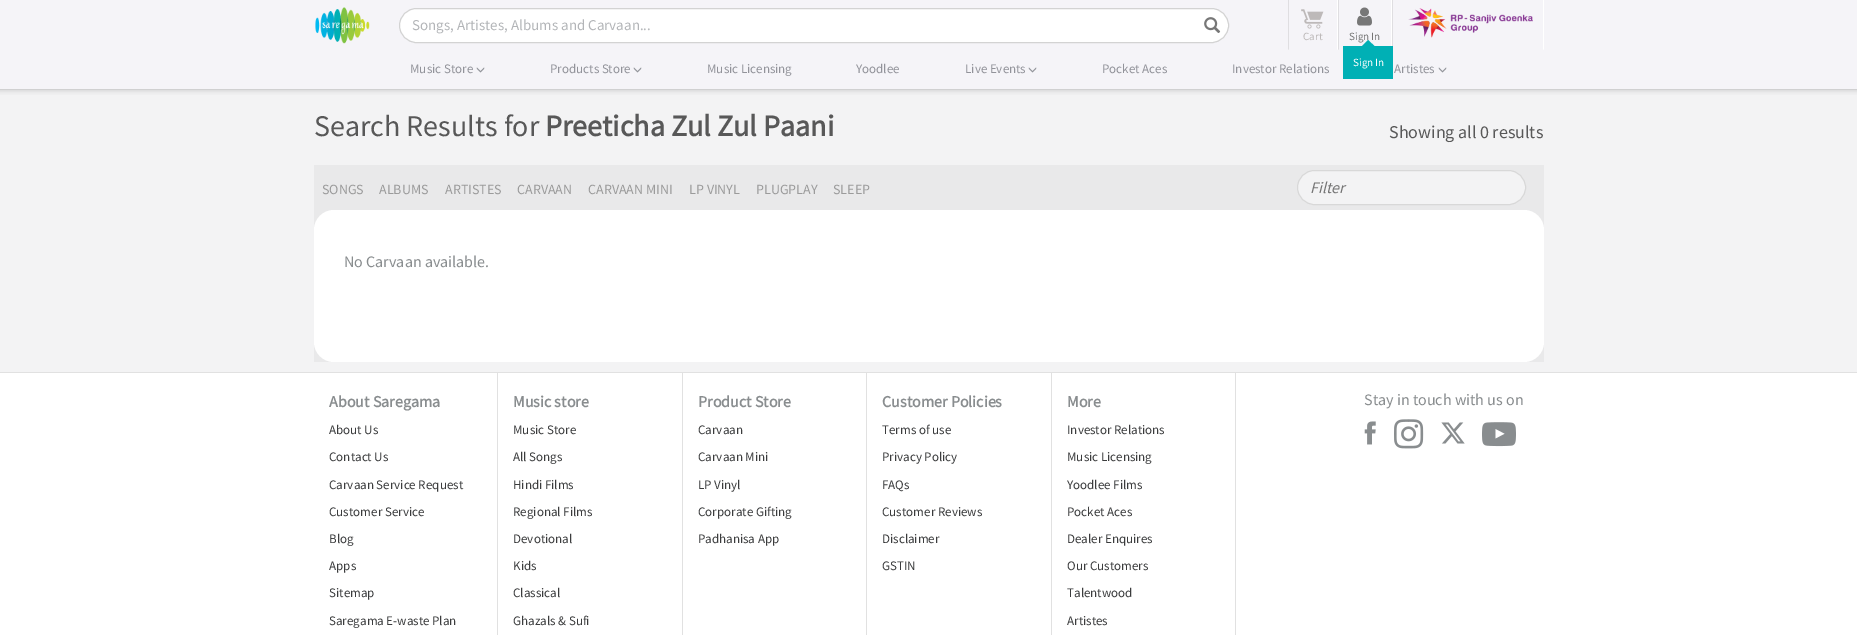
%!PS
<< /PageSize [1857 635] /PageUsesTransparency true >> setpagedevice
/alpha { dup .setfillconstantalpha .setstrokeconstantalpha } def
/roundrect { 5 dict begin { /r /h /w /y /x } { exch def } forall
  x r add y moveto x w add y 2 copy h add r arct x w add y h add x 1 index r arct
  x y h add x y r arct x y 2 copy exch w add exch r arct closepath end } def
/shadow { 12 dict begin { /a /b /q /h /w /y /x } { exch def } forall gsave /was 0 def
  9 -2 -9 { dup b mul 4 div /e exch def 1 sub .425 mul 2.718 exch exp 1 add a .99 .min exch div /now exch def
    1 1 now sub 1 was sub div sub alpha /was now def
    w h .min e 2 mul add 0 gt { x e sub y e sub w e 2 mul add h e 2 mul add
      q e add b .6 mul add w h .min 2 div e add .min 0 .max roundrect fill } if } for grestore end } def
/picture { 5 dict begin { /h /w /y /x /name } { exch def } forall
  gsave x y translate w h scale
  w h 8 [w 0 0 h 0 0] name (r) file false 3 colorimage grestore end } def
0 .pushpdf14devicefilter
0 635 translate 1 -1 scale
4 setmiterlimit
0.953 0.953 0.957 setrgbcolor
0 0 1857 635 rectfill
0.4 setgray
-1 -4 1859 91 0 3.5 1 shadow
0.961 0.957 0.973 setrgbcolor
0 0 1857 89 rectfill
(img1.rgb) 315 7 55 37 picture
1 setgray
399.5 8.5 829 34 17 roundrect gsave fill grestore
0.827 setgray
stroke
/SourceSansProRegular-Regular [15 0 0 -15 0 0] selectfont
0.702 0.71 0.722 setrgbcolor
412 30 moveto (Songs, Artistes, Albums and Carvaan...) show
(img2.rgb) 1204 17 17 16 picture
1 setgray
newpath 1338 0 moveto 1338 50 lineto 1337 49 lineto 1337 0 lineto closepath fill
0.875 0.871 0.882 setrgbcolor
newpath 1288 50 moveto 1288 0 lineto 1289 0 lineto 1289 49 lineto closepath fill
(img3.rgb) 1301 9 23 20 picture
/SourceSansProRegular-Regular [11 0 0 -11 0 0] selectfont
0.741 0.725 0.725 setrgbcolor
1303 40 moveto (Cart) show
1 setgray
newpath 1392 0 moveto 1392 50 lineto 1391 49 lineto 1391 0 lineto closepath fill
0.875 0.871 0.882 setrgbcolor
newpath 1338 50 moveto 1338 0 lineto 1339 0 lineto 1339 49 lineto closepath fill
(img4.rgb) 1357 7 15 19 picture
0.459 setgray
1349 40 moveto (Sign In) show
0.875 0.871 0.882 setrgbcolor
newpath 1392 50 moveto 1392 0 lineto 1393 0 lineto 1393 49 lineto closepath fill
0 0.69 0.71 setrgbcolor
1343 46 50 33 rectfill
newpath 1368 40 moveto 1375.5 47 lineto 1368 54 lineto 1361 47 lineto closepath fill
1 setgray
1353 66 moveto (Sign In) show
newpath 1544 0 moveto 1544 50 lineto 1543 49 lineto 1543 0 lineto closepath fill
(img5.rgb) 1408 8 125 30 picture
/SourceSansProRegular-Regular [13 0 0 -13 0 0] selectfont
0.573 0.576 0.604 setrgbcolor
410 73 moveto (Music Store) show
(img6.rgb) 476 67 9 6 picture
550 73 moveto (Products Store) show
(img6.rgb) 633 67 9 6 picture
707 73 moveto (Music Licensing) show
856 73 moveto (Yoodlee) show
965 73 moveto (Live Events) show
(img6.rgb) 1028 67 9 6 picture
1102 73 moveto (Pocket Aces) show
1232 73 moveto (Investor Relations) show
1394 73 moveto (Artistes) show
(img6.rgb) 1438 67 9 6 picture
/SourceSansProRegular-Regular [30 0 0 -30 0 0] selectfont
0.345 setgray
314 136 moveto (Search Results for) show
/SourceSansProRegular-Bold [30 0 0 -30 0 0] selectfont
545 136 moveto (Preeticha Zul Zul Paani) show
/SourceSansProRegular-Regular [18 0 0 -18 0 0] selectfont
1389 138 moveto (Showing all 0 results) show
0.914 0.914 0.918 setrgbcolor
314 165 1230 197 rectfill
/SourceSansProRegular-Regular [14 0 0 -14 0 0] selectfont
0.608 setgray
322 194 moveto (SONGS) show
379 194 moveto (ALBUMS) show
445 194 moveto (ARTISTES) show
517 194 moveto (CARVAAN) show
588 194 moveto (CARVAAN MINI) show
689 194 moveto (LP VINYL) show
756 194 moveto (PLUGPLAY) show
833 194 moveto (SLEEP) show
0.953 0.953 0.957 setrgbcolor
1297.5 170.5 228 34 17 roundrect gsave fill grestore
0.847 setgray
stroke
/SourceSansProRegular-Italic [16 0 0 -16 0 0] selectfont
0.459 setgray
1310 193 moveto (Filter) show
1 setgray
314 210 1230 152 20 roundrect fill
/SourceSansProRegular-Regular [16 0 0 -16 0 0] selectfont
0.537 0.553 0.561 setrgbcolor
344 267 moveto (No Carvaan available.) show
1 setgray
0 373 1857 262 rectfill
0.882 setgray
0 372 1857 1 rectfill
497 373 1 262 rectfill
/SourceSansProRegular-Bold [16 0 0 -16 0 0] selectfont
0.537 0.553 0.561 setrgbcolor
329 407 moveto (About Saregama) show
/SourceSansProRegular-Regular [13 0 0 -13 0 0] selectfont
0.231 0.235 0.239 setrgbcolor
329 434 moveto (About Us) show
329 461 moveto (Contact Us) show
329 489 moveto (Carvaan Service Request) show
329 516 moveto (Customer Service) show
329 543 moveto (Blog) show
329 570 moveto (Apps) show
329 597 moveto (Sitemap) show
329 625 moveto (Saregama E-waste Plan) show
0.882 setgray
682 373 1 262 rectfill
/SourceSansProRegular-Bold [16 0 0 -16 0 0] selectfont
0.537 0.553 0.561 setrgbcolor
513 407 moveto (Music store) show
/SourceSansProRegular-Regular [13 0 0 -13 0 0] selectfont
0.231 0.235 0.239 setrgbcolor
513 434 moveto (Music Store) show
513 461 moveto (All Songs) show
513 489 moveto (Hindi Films) show
513 516 moveto (Regional Films) show
513 543 moveto (Devotional) show
513 570 moveto (Kids) show
513 597 moveto (Classical) show
513 625 moveto (Ghazals & Sufi) show
0.882 setgray
866 373 1 262 rectfill
/SourceSansProRegular-Bold [16 0 0 -16 0 0] selectfont
0.537 0.553 0.561 setrgbcolor
698 407 moveto (Product Store) show
/SourceSansProRegular-Regular [13 0 0 -13 0 0] selectfont
0.231 0.235 0.239 setrgbcolor
698 434 moveto (Carvaan) show
698 461 moveto (Carvaan Mini) show
698 489 moveto (LP Vinyl) show
698 516 moveto (Corporate Gifting) show
698 543 moveto (Padhanisa App) show
0.882 setgray
1051 373 1 262 rectfill
/SourceSansProRegular-Bold [16 0 0 -16 0 0] selectfont
0.537 0.553 0.561 setrgbcolor
882 407 moveto (Customer Policies) show
/SourceSansProRegular-Regular [13 0 0 -13 0 0] selectfont
0.231 0.235 0.239 setrgbcolor
882 434 moveto (Terms of use) show
882 461 moveto (Privacy Policy) show
882 489 moveto (FAQs) show
882 516 moveto (Customer Reviews) show
882 543 moveto (Disclaimer) show
882 570 moveto (GSTIN) show
0.882 setgray
1235 373 1 262 rectfill
/SourceSansProRegular-Bold [16 0 0 -16 0 0] selectfont
0.537 0.553 0.561 setrgbcolor
1067 407 moveto (More) show
/SourceSansProRegular-Regular [13 0 0 -13 0 0] selectfont
0.231 0.235 0.239 setrgbcolor
1067 434 moveto (Investor Relations) show
1067 461 moveto (Music Licensing) show
1067 489 moveto (Yoodlee Films) show
1067 516 moveto (Pocket Aces) show
1067 543 moveto (Dealer Enquires) show
1067 570 moveto (Our Customers) show
1067 597 moveto (Talentwood) show
1067 625 moveto (Artistes) show
/SourceSansProRegular-Regular [16 0 0 -16 0 0] selectfont
0.537 0.553 0.561 setrgbcolor
1364 405 moveto (Stay in touch with us on) show
(img7.rgb) 1364 421 12 24 picture
(img8.rgb) 1394 419 30 30 picture
(img9.rgb) 1441 422 24 22 picture
(img10.rgb) 1482 422 34 25 picture
.poppdf14devicefilter showpage
